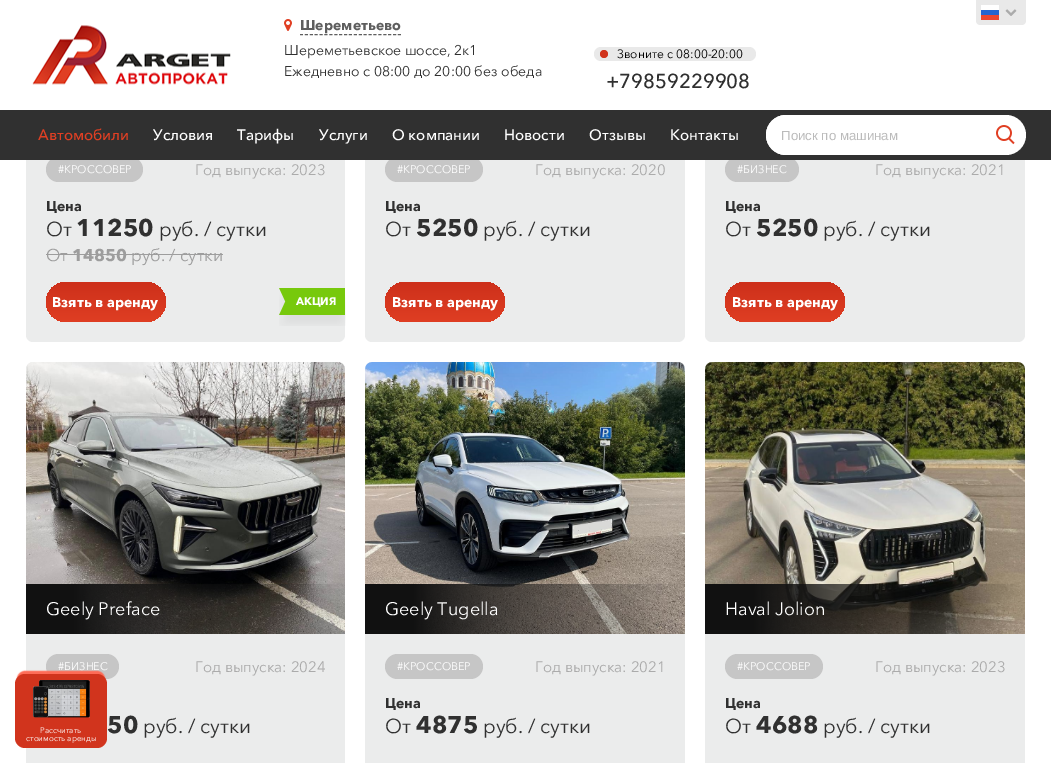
%!PS
<< /PageSize [1051 763] /PageUsesTransparency true >> setpagedevice
/alpha { dup .setfillconstantalpha .setstrokeconstantalpha } def
/roundrect { 5 dict begin { /r /h /w /y /x } { exch def } forall
  x r add y moveto x w add y 2 copy h add r arct x w add y h add x 1 index r arct
  x y h add x y r arct x y 2 copy exch w add exch r arct closepath end } def
/shadow { 12 dict begin { /a /b /q /h /w /y /x } { exch def } forall gsave /was 0 def
  9 -2 -9 { dup b mul 4 div /e exch def 1 sub .425 mul 2.718 exch exp 1 add a .99 .min exch div /now exch def
    1 1 now sub 1 was sub div sub alpha /was now def
    w h .min e 2 mul add 0 gt { x e sub y e sub w e 2 mul add h e 2 mul add
      q e add b .6 mul add w h .min 2 div e add .min 0 .max roundrect fill } if } for grestore end } def
/picture { 5 dict begin { /h /w /y /x /name } { exch def } forall
  gsave x y translate w h scale
  w h 8 [w 0 0 h 0 0] name (r) file false 3 colorimage grestore end } def
0 .pushpdf14devicefilter
0 763 translate 1 -1 scale
4 setmiterlimit
1 setgray
0 0 1051 763 rectfill
0.922 0.925 0.925 setrgbcolor
26 -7 319 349 7 roundrect fill
365 -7 320 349 7 roundrect fill
705 -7 320 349 7 roundrect fill
1 setgray
26 0 999 110 rectfill
0.914 setgray
newpath 976 0 moveto 1026 0 lineto 1026 21 lineto 1026 23 1024 25 1022 25 curveto 980 25 lineto 978 25 976 23 976 21 curveto closepath fill
(img1.rgb) 981 5 18 15 picture
(img2.rgb) 1005 9 12 7 picture
(img3.rgb) 32 25 199 60 picture
(img4.rgb) 284 19 8 12 picture
/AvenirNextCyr-Bold [14 0 0 -14 0 0] selectfont
0.369 setgray
300 30 moveto (Шереметьево) show
[3 1.9] 0 setdash
newpath 300 34.5 moveto 401 34.5 lineto stroke
/AvenirNextCyr-Regular [14 0 0 -14 0 0] selectfont
0.188 setgray
284 55 moveto (Шереметьевское шоссе, 2к1) show
284 76 moveto (Ежедневно с 08:00 до 20:00 без обеда) show
0.914 setgray
594 47 162 14 7 roundrect fill
0.82 0.204 0.114 setrgbcolor
newpath 604 54 4 0 360 arc closepath fill
/AvenirNextCyr-Regular [12 0 0 -12 0 0] selectfont
0 setgray
617 58 moveto (Звоните с 08:00-20:00) show
/AvenirNextCyr-Medium [20 0 0 -20 0 0] selectfont
0.188 setgray
606 88 moveto (+79859229908) show
0.776 setgray
46 157 97 25 12.5 roundrect fill
385 157 98 25 12.5 roundrect fill
725 157 74 25 12.5 roundrect fill
0.188 setgray
0 110 1051 50 rectfill
/AvenirNextCyr-Medium [15 0 0 -15 0 0] selectfont
0.878 0.247 0.137 setrgbcolor
38 140 moveto (Автомобили) show
1 setgray
153 140 moveto (Условия) show
237 140 moveto (Тарифы) show
319 140 moveto (Услуги) show
392 140 moveto (О компании) show
504 140 moveto (Новости) show
589 140 moveto (Отзывы) show
670 140 moveto (Контакты) show
766 115 260 40 20 roundrect fill
newpath 786 115 moveto 986 115 lineto 986 155 lineto 786 155 lineto 775 155 766 146 766 135 curveto 766 124 775 115 786 115 curveto closepath fill
/LiberationSans-Regular [13.25 0 0 -13.25 0 0] selectfont
0.733 setgray
781 140 moveto (Поиск по машинам) show
(img5.rgb) 996 125 19 20 picture
/AvenirNextCyr-Regular [11 0 0 -11 0 0] selectfont
1 setgray
58 173 moveto (#КРОССОВЕР) show
/AvenirNextCyr-Regular [15 0 0 -15 0 0] selectfont
0.671 setgray
195 175 moveto (Год выпуска: 2023) show
/AvenirNextCyr-Bold [14 0 0 -14 0 0] selectfont
0.188 setgray
46 211 moveto (Цена) show
/AvenirNextCyr-Regular [20 0 0 -20 0 0] selectfont
46 236 moveto (От) show
/AvenirNextCyr-Bold [24 0 0 -24 0 0] selectfont
76 236 moveto (11250) show
/AvenirNextCyr-Regular [20 0 0 -20 0 0] selectfont
159 236 moveto (руб. / сутки) show
/AvenirNextCyr-Regular [17 0 0 -17 0 0] selectfont
0.616 setgray
46 261 moveto (От) show
46 254 26 1 rectfill
/AvenirNextCyr-Bold [17 0 0 -17 0 0] selectfont
72 261 moveto (14850) show
72 254 55 1 rectfill
/AvenirNextCyr-Regular [17 0 0 -17 0 0] selectfont
131 261 moveto (руб. / сутки) show
127 254 96 1 rectfill
gsave 46 282 120 40 20 roundrect clip newpath
<< /ShadingType 2 /ColorSpace /DeviceRGB /Coords [106 322 106 282] /Extend [true true] /Function << /FunctionType 2 /Domain [0 1] /C0 [0.875 0.243 0.137] /C1 [0.804 0.188 0.106] /N 1 >> >> shfill grestore
/AvenirNextCyr-Bold [14 0 0 -14 0 0] selectfont
1 setgray
52 307 moveto (Взять в аренду) show
(img6.rgb) 279 288 67 38 picture
/AvenirNextCyr-Bold [11 0 0 -11 0 0] selectfont
296 305 moveto (АКЦИЯ) show
/AvenirNextCyr-Regular [11 0 0 -11 0 0] selectfont
397 173 moveto (#КРОССОВЕР) show
/AvenirNextCyr-Regular [15 0 0 -15 0 0] selectfont
0.671 setgray
535 175 moveto (Год выпуска: 2020) show
/AvenirNextCyr-Bold [14 0 0 -14 0 0] selectfont
0.188 setgray
385 211 moveto (Цена) show
/AvenirNextCyr-Regular [20 0 0 -20 0 0] selectfont
385 236 moveto (От) show
/AvenirNextCyr-Bold [24 0 0 -24 0 0] selectfont
416 236 moveto (5250) show
/AvenirNextCyr-Regular [20 0 0 -20 0 0] selectfont
483 236 moveto (руб. / сутки) show
gsave 385 282 120 40 20 roundrect clip newpath
<< /ShadingType 2 /ColorSpace /DeviceRGB /Coords [445 322 445 282] /Extend [true true] /Function << /FunctionType 2 /Domain [0 1] /C0 [0.875 0.243 0.137] /C1 [0.804 0.188 0.106] /N 1 >> >> shfill grestore
/AvenirNextCyr-Bold [14 0 0 -14 0 0] selectfont
1 setgray
392 307 moveto (Взять в аренду) show
/AvenirNextCyr-Regular [11 0 0 -11 0 0] selectfont
737 173 moveto (#БИЗНЕС) show
/AvenirNextCyr-Regular [15 0 0 -15 0 0] selectfont
0.671 setgray
875 175 moveto (Год выпуска: 2021) show
/AvenirNextCyr-Bold [14 0 0 -14 0 0] selectfont
0.188 setgray
725 211 moveto (Цена) show
/AvenirNextCyr-Regular [20 0 0 -20 0 0] selectfont
725 236 moveto (От) show
/AvenirNextCyr-Bold [24 0 0 -24 0 0] selectfont
756 236 moveto (5250) show
/AvenirNextCyr-Regular [20 0 0 -20 0 0] selectfont
823 236 moveto (руб. / сутки) show
gsave 725 282 120 40 20 roundrect clip newpath
<< /ShadingType 2 /ColorSpace /DeviceRGB /Coords [785 322 785 282] /Extend [true true] /Function << /FunctionType 2 /Domain [0 1] /C0 [0.875 0.243 0.137] /C1 [0.804 0.188 0.106] /N 1 >> >> shfill grestore
/AvenirNextCyr-Bold [14 0 0 -14 0 0] selectfont
1 setgray
732 307 moveto (Взять в аренду) show
0.922 0.925 0.925 setrgbcolor
26 362 319 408 7 roundrect fill
(img7.rgb) 26 362 319 272 picture
/AvenirNextCyr-Regular [18 0 0 -18 0 0] selectfont
1 setgray
46 615 moveto (Geely Preface) show
0.776 setgray
46 654 73 25 12.5 roundrect fill
/AvenirNextCyr-Regular [11 0 0 -11 0 0] selectfont
1 setgray
58 670 moveto (#БИЗНЕС) show
/AvenirNextCyr-Regular [15 0 0 -15 0 0] selectfont
0.671 setgray
195 672 moveto (Год выпуска: 2024) show
/AvenirNextCyr-Bold [24 0 0 -24 0 0] selectfont
0.188 setgray
107 733 moveto (50) show
/AvenirNextCyr-Regular [20 0 0 -20 0 0] selectfont
143 733 moveto (руб. / сутки) show
0.922 0.925 0.925 setrgbcolor
365 362 320 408 7 roundrect fill
(img8.rgb) 365 362 320 272 picture
/AvenirNextCyr-Regular [18 0 0 -18 0 0] selectfont
1 setgray
385 615 moveto (Geely Tugella) show
0.776 setgray
385 654 98 25 12.5 roundrect fill
/AvenirNextCyr-Regular [11 0 0 -11 0 0] selectfont
1 setgray
397 670 moveto (#КРОССОВЕР) show
/AvenirNextCyr-Regular [15 0 0 -15 0 0] selectfont
0.671 setgray
535 672 moveto (Год выпуска: 2021) show
/AvenirNextCyr-Bold [14 0 0 -14 0 0] selectfont
0.188 setgray
385 708 moveto (Цена) show
/AvenirNextCyr-Regular [20 0 0 -20 0 0] selectfont
385 733 moveto (От) show
/AvenirNextCyr-Bold [24 0 0 -24 0 0] selectfont
416 733 moveto (4875) show
/AvenirNextCyr-Regular [20 0 0 -20 0 0] selectfont
483 733 moveto (руб. / сутки) show
0.922 0.925 0.925 setrgbcolor
705 362 320 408 7 roundrect fill
(img9.rgb) 705 362 320 272 picture
/AvenirNextCyr-Regular [18 0 0 -18 0 0] selectfont
1 setgray
725 615 moveto (Haval Jolion) show
0.776 setgray
725 654 98 25 12.5 roundrect fill
/AvenirNextCyr-Regular [11 0 0 -11 0 0] selectfont
1 setgray
737 670 moveto (#КРОССОВЕР) show
/AvenirNextCyr-Regular [15 0 0 -15 0 0] selectfont
0.671 setgray
875 672 moveto (Год выпуска: 2023) show
/AvenirNextCyr-Bold [14 0 0 -14 0 0] selectfont
0.188 setgray
725 708 moveto (Цена) show
/AvenirNextCyr-Regular [20 0 0 -20 0 0] selectfont
725 733 moveto (От) show
/AvenirNextCyr-Bold [24 0 0 -24 0 0] selectfont
756 733 moveto (4688) show
/AvenirNextCyr-Regular [20 0 0 -20 0 0] selectfont
823 733 moveto (руб. / сутки) show
1 0.412 0.325 setrgbcolor
17 671 88 70 8 0.5 1 shadow
0.82 0.204 0.114 setrgbcolor
15 674 92 74 10 roundrect fill
(img10.rgb) 33 680 57 38 picture
/AvenirNextCyr-Regular [8 0 0 -8 0 0] selectfont
1 setgray
40 733 moveto (Рассчитать) show
26 741 moveto (стоимость аренды) show
.poppdf14devicefilter showpage
